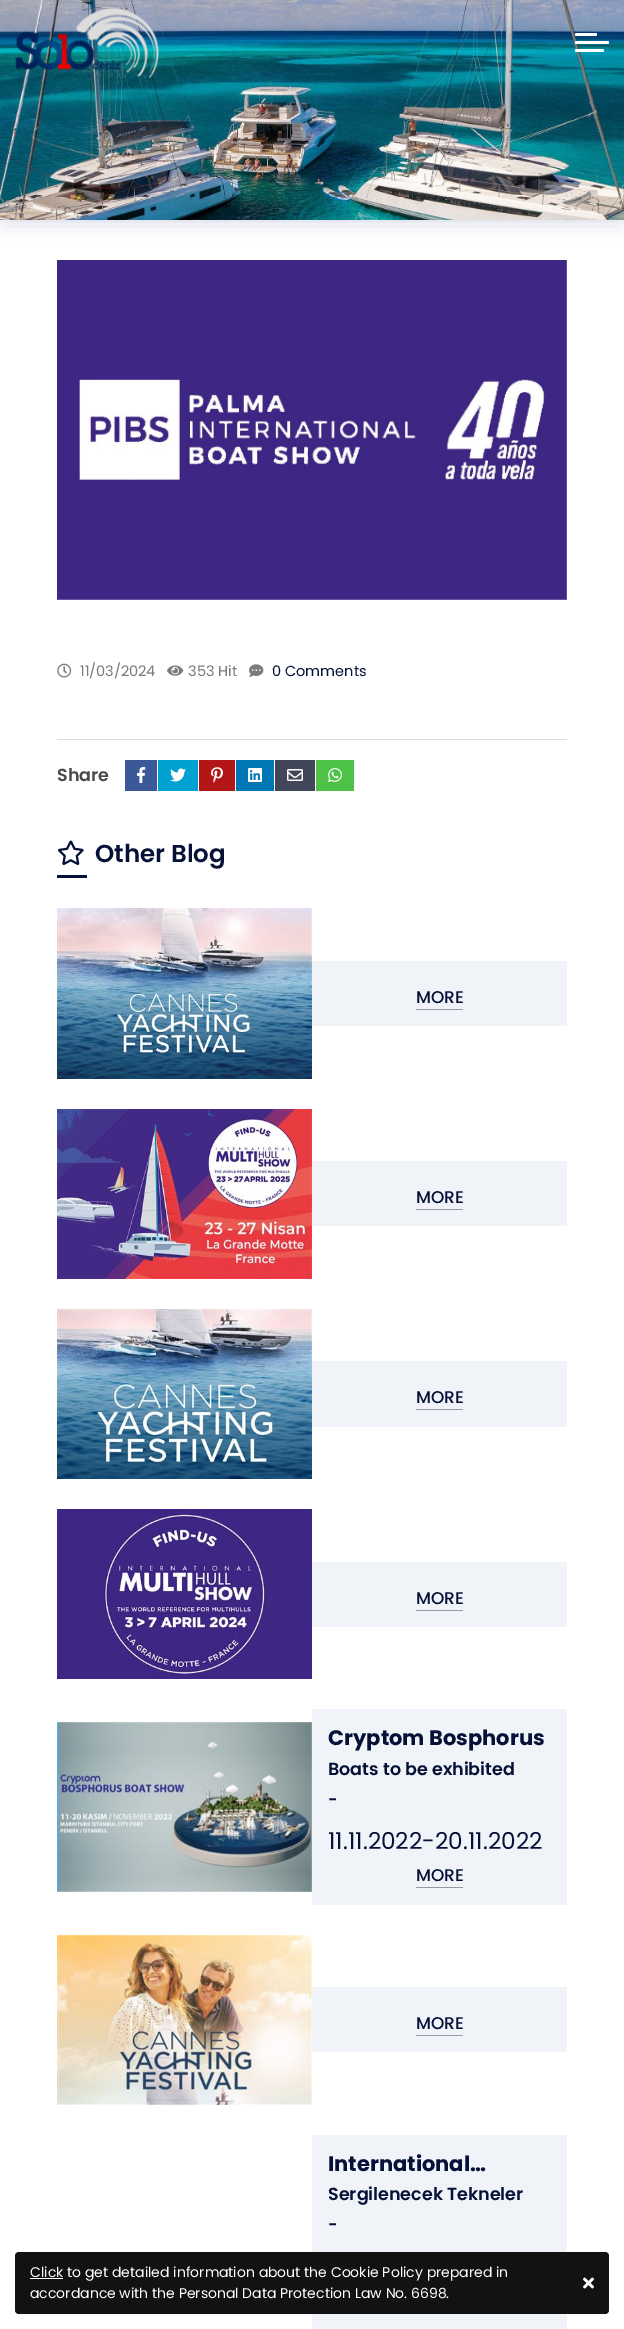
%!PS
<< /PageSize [624 2329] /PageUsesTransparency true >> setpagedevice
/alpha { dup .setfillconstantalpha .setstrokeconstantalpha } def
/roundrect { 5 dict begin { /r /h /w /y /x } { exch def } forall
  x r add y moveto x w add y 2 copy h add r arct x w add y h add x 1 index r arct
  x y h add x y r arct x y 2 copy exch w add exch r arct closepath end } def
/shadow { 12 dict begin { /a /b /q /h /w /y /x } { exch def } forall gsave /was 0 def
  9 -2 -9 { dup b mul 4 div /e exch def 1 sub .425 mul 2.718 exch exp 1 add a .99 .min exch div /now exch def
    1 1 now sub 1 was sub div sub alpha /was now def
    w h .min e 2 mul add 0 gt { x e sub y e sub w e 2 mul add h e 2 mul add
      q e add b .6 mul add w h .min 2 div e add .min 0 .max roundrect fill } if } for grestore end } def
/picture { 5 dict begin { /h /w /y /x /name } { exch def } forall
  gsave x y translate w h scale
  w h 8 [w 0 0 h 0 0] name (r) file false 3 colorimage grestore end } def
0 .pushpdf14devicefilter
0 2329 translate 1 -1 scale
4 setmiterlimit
1 setgray
0 0 624 2329 rectfill
0.804 0.82 0.882 setrgbcolor
5 10 614 210 0 10.5 1 shadow
(img2.rgb) 0 0 624 220 picture
(img1.rgb) 15 8 144 70 picture
1 setgray
575 33 22 3 1.5 roundrect fill
575 41 34 3 1.5 roundrect fill
575 49 29 3 1.5 roundrect fill
(img3.rgb) 57 260 510 340 picture
(img4.rgb) 57 663 15 15 picture
/Poppins-Regular [14.5 0 0 -14.5 0 0] selectfont
0.482 setgray
80 676 moveto (11/03/2024) show
(img5.rgb) 167 665 17 11 picture
188 676 moveto (353 Hit) show
(img6.rgb) 249 664 15 13 picture
0.024 0.067 0.22 setrgbcolor
272 676 moveto (0 Comments) show
0.867 setgray
57 739 510 1 rectfill
/Poppins-SemiBold [17.5 0 0 -17.5 0 0] selectfont
0.286 setgray
57 781 moveto (Share) show
0.231 0.349 0.596 setrgbcolor
125 760 32 31 rectfill
(img7.rgb) 137 767 9 16 picture
0 0.627 0.82 setrgbcolor
158 760 40 31 rectfill
(img8.rgb) 170 768 16 14 picture
0.702 0.086 0.086 setrgbcolor
199 760 36 31 rectfill
(img9.rgb) 211 767 12 16 picture
0 0.467 0.71 setrgbcolor
236 760 38 31 rectfill
(img10.rgb) 248 768 14 14 picture
0.255 0.275 0.349 setrgbcolor
275 760 40 31 rectfill
(img11.rgb) 287 769 16 12 picture
0.302 0.761 0.278 setrgbcolor
316 760 38 31 rectfill
(img12.rgb) 328 768 14 14 picture
(img13.rgb) 58 840 26 25 picture
/Poppins-SemiBold [24.5 0 0 -24.5 0 0] selectfont
0.024 0.067 0.22 setrgbcolor
95 862 moveto (Other Blog) show
57 875 30 3 rectfill
(img14.rgb) 57 908 255 171 picture
0.941 0.953 0.969 setrgbcolor
312 961 255 65 rectfill
/Poppins-Medium [17 0 0 -17 0 0] selectfont
0.024 0.067 0.22 setrgbcolor
416 1003 moveto (MORE) show
0.588 0.596 0.635 setrgbcolor
416 1009 47 1 rectfill
(img15.rgb) 57 1109 255 170 picture
0.941 0.953 0.969 setrgbcolor
312 1161 255 65 rectfill
0.024 0.067 0.22 setrgbcolor
416 1203 moveto (MORE) show
0.588 0.596 0.635 setrgbcolor
416 1209 47 1 rectfill
(img16.rgb) 57 1309 255 170 picture
0.941 0.953 0.969 setrgbcolor
312 1361 255 66 rectfill
0.024 0.067 0.22 setrgbcolor
416 1403 moveto (MORE) show
0.588 0.596 0.635 setrgbcolor
416 1409 47 1 rectfill
(img17.rgb) 57 1509 255 170 picture
0.941 0.953 0.969 setrgbcolor
312 1562 255 65 rectfill
0.024 0.067 0.22 setrgbcolor
416 1604 moveto (MORE) show
0.588 0.596 0.635 setrgbcolor
416 1610 47 1 rectfill
(img18.rgb) 57 1722 255 170 picture
0.941 0.953 0.969 setrgbcolor
312 1709 255 196 rectfill
/Poppins-Bold [21 0 0 -21 0 0] selectfont
0.024 0.067 0.22 setrgbcolor
328 1745 moveto (Cryptom Bosphorus) show
/Poppins-SemiBold [17.5 0 0 -17.5 0 0] selectfont
328 1775 moveto (Boats to be exhibited) show
/Poppins-SemiBold [16 0 0 -16 0 0] selectfont
328 1805 moveto (-) show
/Poppins-Regular [23.25 0 0 -23.25 0 0] selectfont
328 1849 moveto (11.11.2022-20.11.2022) show
/Poppins-Medium [17 0 0 -17 0 0] selectfont
416 1881 moveto (MORE) show
0.588 0.596 0.635 setrgbcolor
416 1887 47 1 rectfill
(img19.rgb) 57 1935 255 170 picture
0.941 0.953 0.969 setrgbcolor
312 1987 255 65 rectfill
0.024 0.067 0.22 setrgbcolor
416 2029 moveto (MORE) show
0.588 0.596 0.635 setrgbcolor
416 2035 47 1 rectfill
0.941 0.953 0.969 setrgbcolor
312 2135 255 194 rectfill
/Poppins-Bold [21 0 0 -21 0 0] selectfont
0.024 0.067 0.22 setrgbcolor
328 2171 moveto (International…) show
/Poppins-SemiBold [17.5 0 0 -17.5 0 0] selectfont
328 2200 moveto (Sergilenecek Tekneler) show
/Poppins-SemiBold [16 0 0 -16 0 0] selectfont
328 2230 moveto (-) show
0.071 setgray
15 2252 594 62 4 roundrect fill
1 setgray
30 2278 33 1 rectfill
/Poppins-Regular [14 0 0 -14 0 0] selectfont
30 2277 moveto (Click to get detailed information about the Cookie Policy prepared in) show
30 2298 moveto (accordance with the Personal Data Protection Law No. 6698.) show
(img20.rgb) 583 2277 11 12 picture
.poppdf14devicefilter showpage
